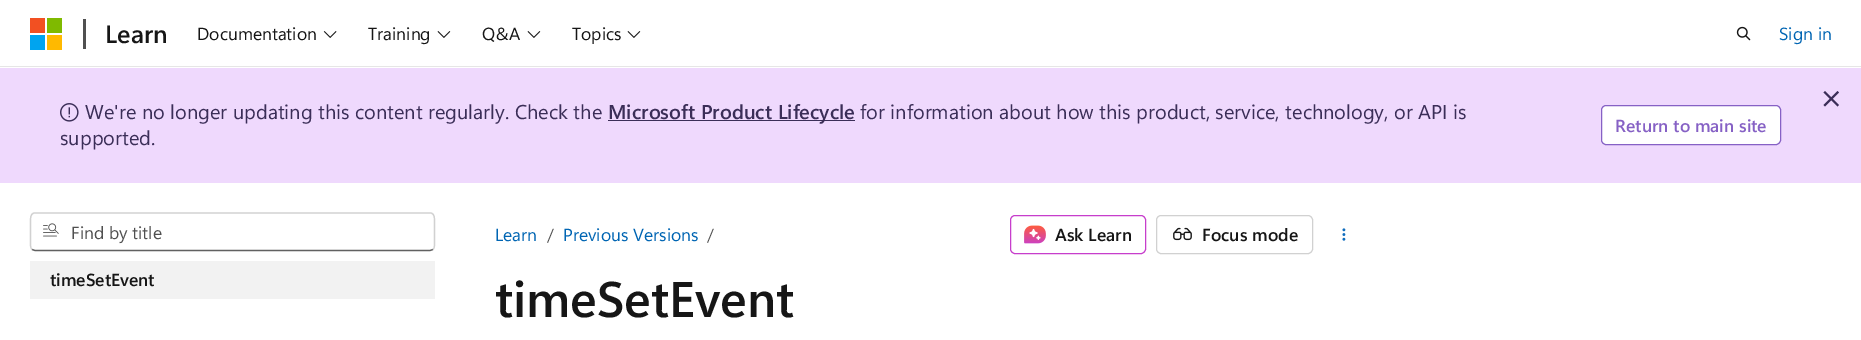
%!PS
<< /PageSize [1861 340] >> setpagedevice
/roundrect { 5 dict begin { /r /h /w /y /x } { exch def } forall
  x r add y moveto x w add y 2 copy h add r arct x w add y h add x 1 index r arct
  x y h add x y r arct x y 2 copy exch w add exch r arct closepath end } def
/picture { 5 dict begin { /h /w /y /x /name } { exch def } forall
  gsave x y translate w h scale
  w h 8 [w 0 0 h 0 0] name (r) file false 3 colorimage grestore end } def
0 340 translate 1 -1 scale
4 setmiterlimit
1 setgray
0 0 1861 340 rectfill
0.902 setgray
0 66 1861 1 rectfill
0.949 0.314 0.133 setrgbcolor
30 18 15 15 rectfill
0.498 0.729 0 setrgbcolor
47 18 15 15 rectfill
0 0.643 0.937 setrgbcolor
30 35 15 15 rectfill
1 0.725 0 setrgbcolor
47 35 15 15 rectfill
0.314 setgray
83 19 3 30 rectfill
/SegoeUI-SemiBold [25 0 0 -25 0 0] selectfont
0.086 setgray
105 43 moveto (Learn) show
/SegoeUI-Regular [17.5 0 0 -17.5 0 0] selectfont
197 40 moveto (Documentation) show
(img1.rgb) 323 31 14 7 picture
368 40 moveto (Training) show
(img2.rgb) 437 31 14 7 picture
482 40 moveto (Q&A) show
(img2.rgb) 527 31 14 7 picture
572 40 moveto (Topics) show
(img2.rgb) 627 31 14 7 picture
(img3.rgb) 1736 26 15 15 picture
0 0.396 0.702 setrgbcolor
1779 40 moveto (Sign in) show
0.937 0.851 0.992 setrgbcolor
0 68 1861 115 rectfill
0.231 0.18 0.345 setrgbcolor
newpath 1825 91 moveto 1839 105 lineto 1837.5 106.5 lineto 1823.5 92.5 lineto closepath fill
newpath 1837.5 91 moveto 1839 92.5 lineto 1825 106.5 lineto 1823.5 105 lineto closepath fill
(img4.rgb) 60 103 19 19 picture
/SegoeUI-Regular [20 0 0 -20 0 0] selectfont
85 119 moveto (We're no longer updating this content regularly. Check the) show
608 120 247 1 rectfill
/SegoeUI-SemiBold [20 0 0 -20 0 0] selectfont
608 119 moveto (Microsoft Product Lifecycle) show
/SegoeUI-Regular [20 0 0 -20 0 0] selectfont
860 119 moveto (for information about how this product, service, technology, or API is) show
60 145 moveto (supported.) show
1 setgray
1601.5 105.5 179 39 4.5 roundrect gsave fill grestore
0.525 0.38 0.773 setrgbcolor
stroke
/SegoeUI-SemiBold [17.5 0 0 -17.5 0 0] selectfont
1615 132 moveto (Return to main site) show
0.38 setgray
1.2 setlinewidth
newpath 433 249.5 moveto 430 250.5 lineto 35 250.5 lineto 32 249.5 lineto stroke
0.82 setgray
newpath 32 249.5 moveto 30 247.5 30.5 244 30.5 241.5 curveto 30.5 222.5 lineto 30.5 219 30 214 34 213 curveto 431 213 lineto 435 214 434.5 219 434.5 222.5 curveto 434.5 241.5 lineto 434.5 244 435 247.5 433 249.5 curveto stroke
(img5.rgb) 43 223 16 14 picture
/SegoeUI-Regular [17.5 0 0 -17.5 0 0] selectfont
0.314 setgray
71 239 moveto (Find by title) show
0.949 setgray
30 261 405 38 rectfill
/SegoeUI-SemiBold [17.5 0 0 -17.5 0 0] selectfont
0.086 setgray
50 286 moveto (timeSetEvent) show
/SegoeUI-Regular [17.5 0 0 -17.5 0 0] selectfont
0 0.396 0.702 setrgbcolor
495 241 moveto (Learn) show
0.314 setgray
547 241 moveto (/) show
0 0.396 0.702 setrgbcolor
563 241 moveto (Previous Versions) show
0.314 setgray
707 241 moveto (/) show
0.78 0.243 0.8 setrgbcolor
1 setlinewidth
1010.5 215.5 135 38 4.5 roundrect stroke
(img6.rgb) 1024 225 22 19 picture
/SegoeUI-SemiBold [17.5 0 0 -17.5 0 0] selectfont
0.086 setgray
1055 241 moveto (Ask Learn) show
0.82 setgray
1156.5 215.5 156 38 4.5 roundrect stroke
(img7.rgb) 1173 227 19 14 picture
0.086 setgray
1202 241 moveto (Focus mode) show
(img8.rgb) 1342 228 4 13 picture
/SegoeUI-SemiBold [50 0 0 -50 0 0] selectfont
495 317 moveto (timeSetEvent) show
showpage
